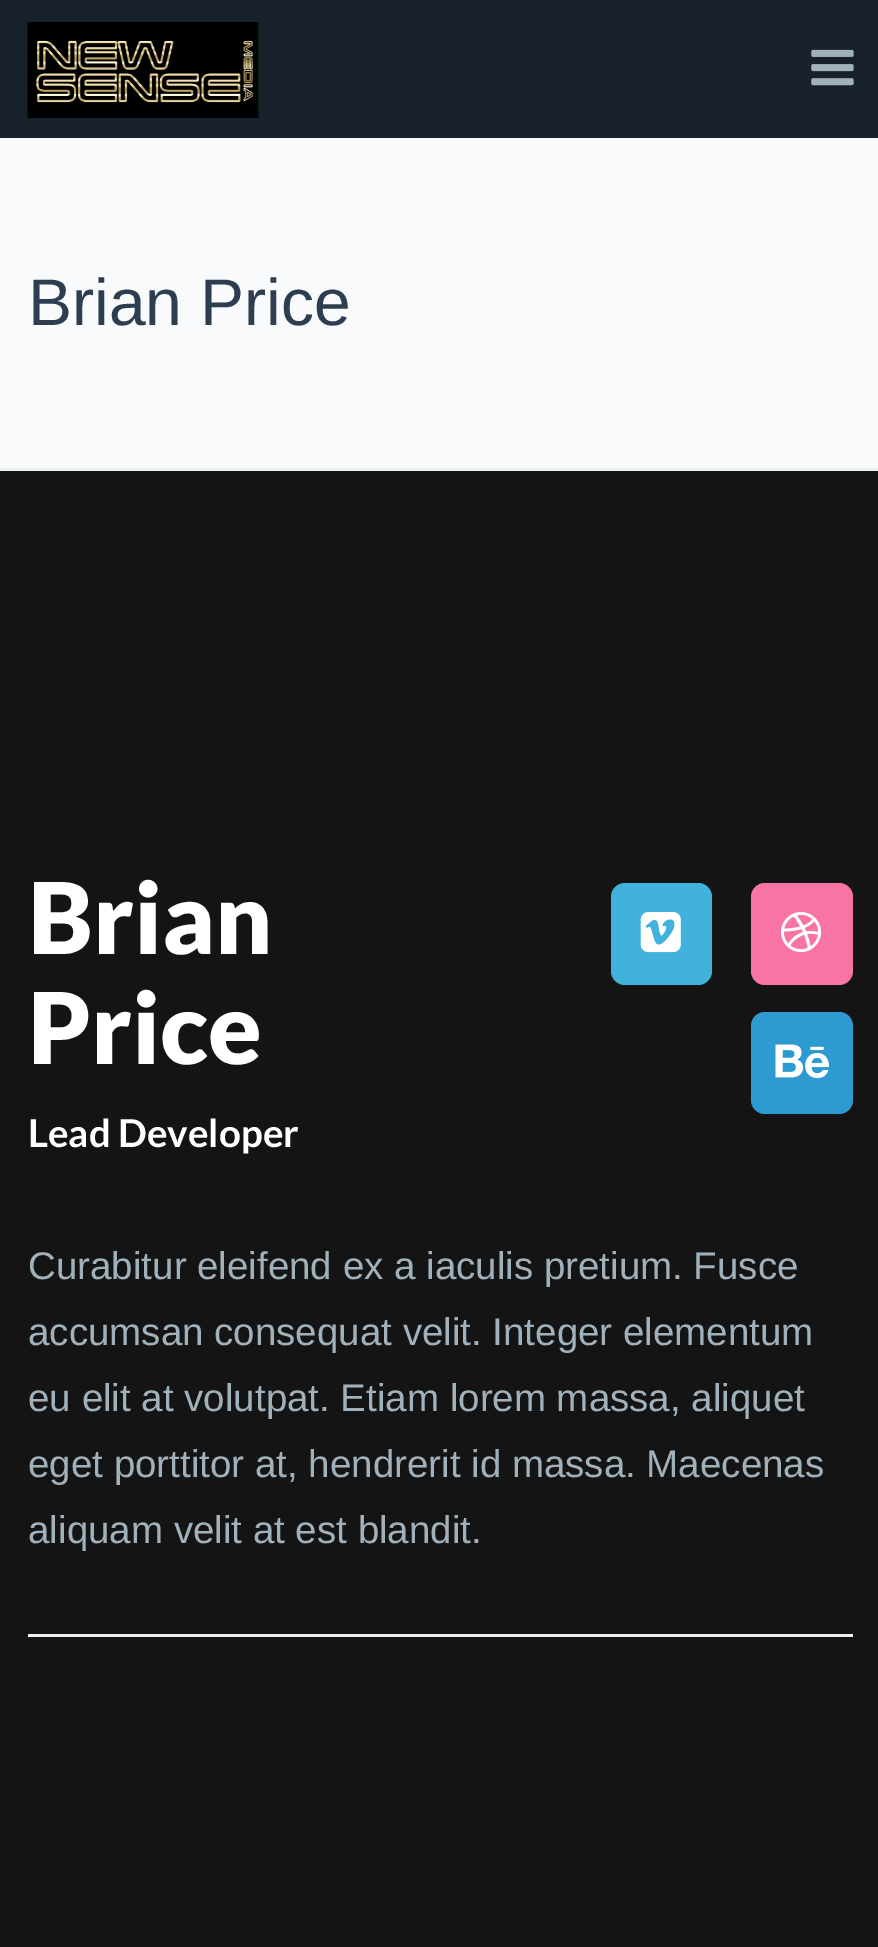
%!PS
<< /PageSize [878 1947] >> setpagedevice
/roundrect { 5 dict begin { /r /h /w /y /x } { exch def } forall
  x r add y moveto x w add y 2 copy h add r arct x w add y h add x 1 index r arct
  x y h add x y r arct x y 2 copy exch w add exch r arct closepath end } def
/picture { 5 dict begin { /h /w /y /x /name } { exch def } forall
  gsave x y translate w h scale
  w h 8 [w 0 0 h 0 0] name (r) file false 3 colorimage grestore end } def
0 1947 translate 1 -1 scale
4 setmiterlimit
0.078 setgray
0 0 878 1947 rectfill
0.094 0.125 0.169 setrgbcolor
0 0 878 138 rectfill
(img1.rgb) 27 22 232 96 picture
(img2.rgb) 811 49 43 37 picture
0.976 0.98 0.984 setrgbcolor
0 138 878 330 rectfill
0.925 0.941 0.945 setrgbcolor
0 468 878 3 rectfill
/LiberationSans-Regular [66 0 0 -66 0 0] selectfont
0.173 0.243 0.314 setrgbcolor
28 325 moveto (Brian Price) show
/Lato-Black [99 0 0 -99 0 0] selectfont
1 setgray
28 954 moveto (Brian) show
28 1064 moveto (Price) show
/Lato-Bold [38.5 0 0 -38.5 0 0] selectfont
28 1147 moveto (Lead Developer) show
0.255 0.698 0.863 setrgbcolor
611 883 101 102 14 roundrect fill
(img3.rgb) 640 912 41 41 picture
0.973 0.455 0.643 setrgbcolor
751 883 102 102 14 roundrect fill
(img4.rgb) 781 912 41 41 picture
0.176 0.604 0.824 setrgbcolor
751 1012 102 102 14 roundrect fill
(img5.rgb) 775 1044 54 35 picture
/LiberationSans-Regular [38.5 0 0 -38.5 0 0] selectfont
0.631 0.694 0.737 setrgbcolor
28 1279 moveto (Curabitur eleifend ex a iaculis pretium. Fusce) show
28 1345 moveto (accumsan consequat velit. Integer elementum) show
28 1411 moveto (eu elit at volutpat. Etiam lorem massa, aliquet) show
28 1477 moveto (eget porttitor at, hendrerit id massa. Maecenas) show
28 1543 moveto (aliquam velit at est blandit.) show
0.925 0.941 0.945 setrgbcolor
28 1634 825 3 rectfill
showpage
